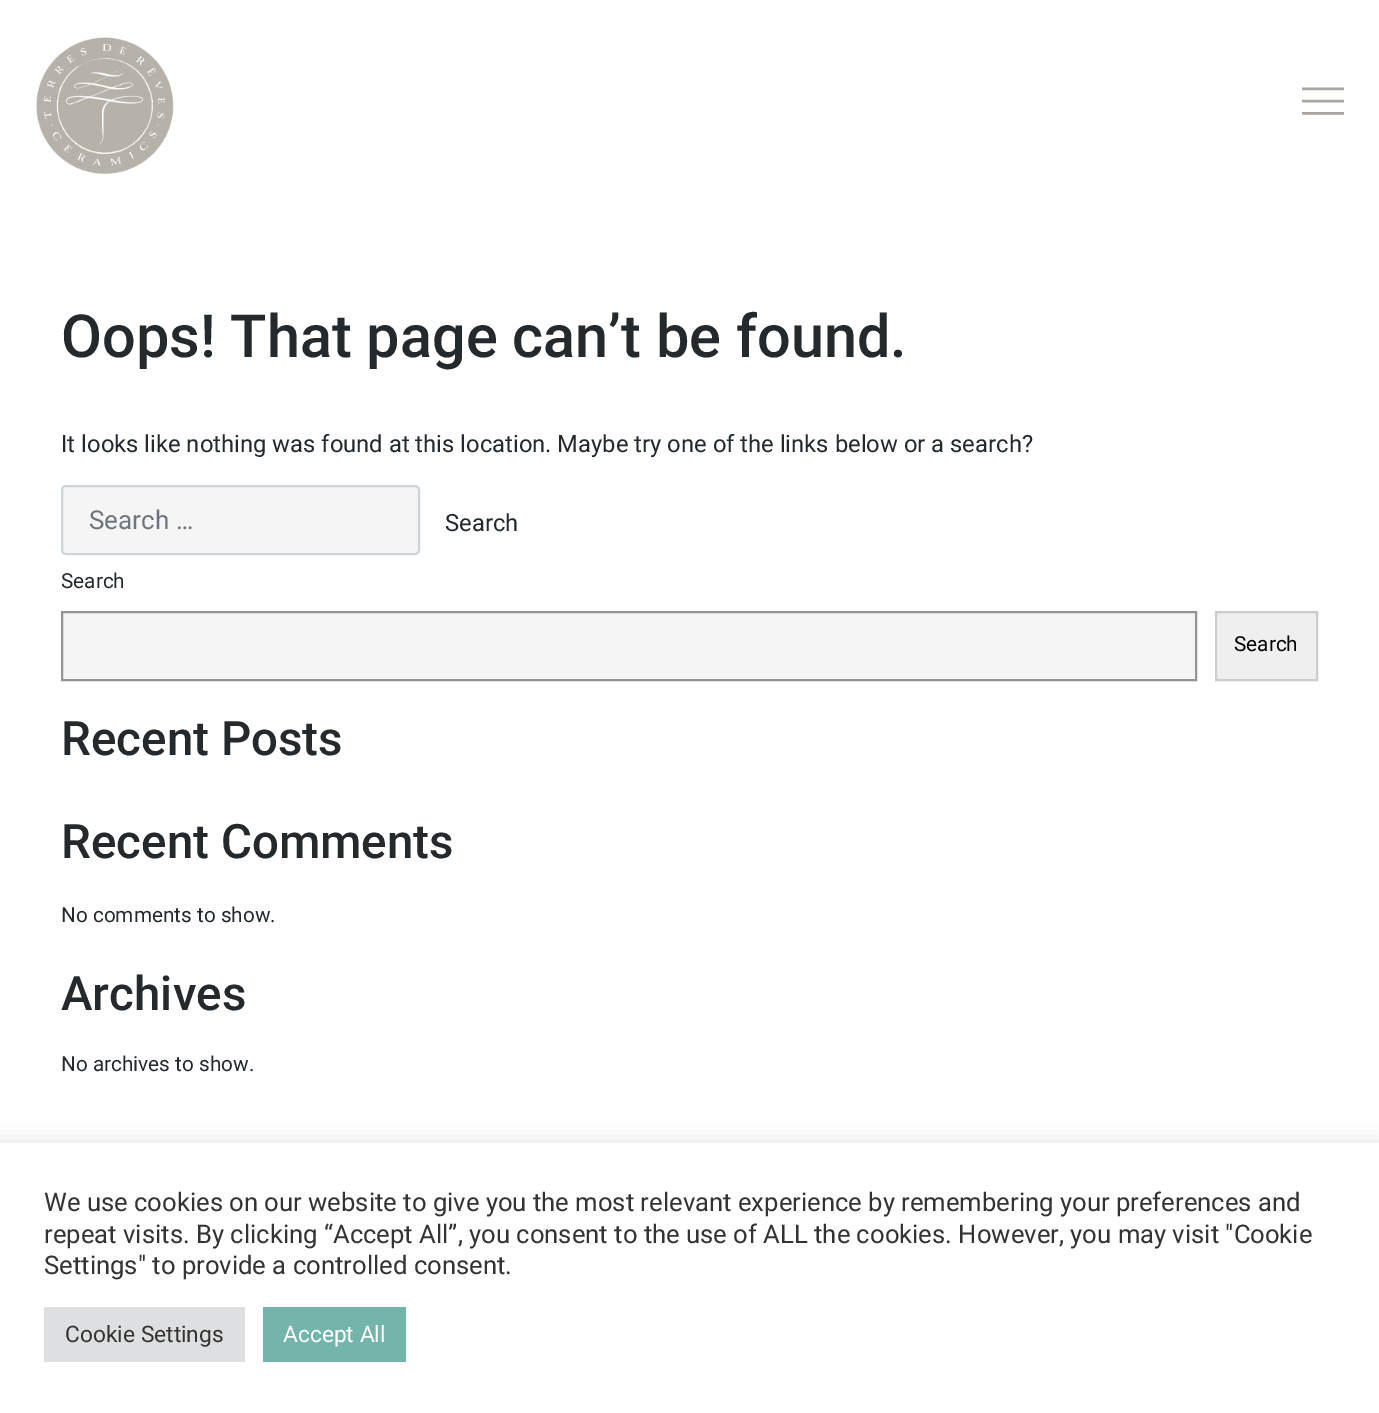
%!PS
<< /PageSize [1379 1413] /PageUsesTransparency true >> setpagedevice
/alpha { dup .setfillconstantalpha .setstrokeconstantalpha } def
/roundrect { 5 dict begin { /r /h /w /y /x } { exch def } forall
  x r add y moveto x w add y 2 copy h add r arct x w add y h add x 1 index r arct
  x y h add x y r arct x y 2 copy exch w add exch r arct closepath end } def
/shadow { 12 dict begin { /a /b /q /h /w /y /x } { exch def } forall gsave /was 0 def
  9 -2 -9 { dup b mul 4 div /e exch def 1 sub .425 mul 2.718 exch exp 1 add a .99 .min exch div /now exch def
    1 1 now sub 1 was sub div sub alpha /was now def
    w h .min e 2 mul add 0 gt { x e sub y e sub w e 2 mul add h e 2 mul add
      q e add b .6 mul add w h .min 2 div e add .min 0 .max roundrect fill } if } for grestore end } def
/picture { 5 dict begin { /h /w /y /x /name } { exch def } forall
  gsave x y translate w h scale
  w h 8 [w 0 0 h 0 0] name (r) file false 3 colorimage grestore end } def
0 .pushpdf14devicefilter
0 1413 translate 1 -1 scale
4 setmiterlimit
1 setgray
0 0 1379 1413 rectfill
(img1.rgb) 36 37 138 137 picture
(img2.rgb) 1302 87 42 28 picture
/Roboto-Medium [59.5 0 0 -59.5 0 0] selectfont
0.141 0.161 0.18 setrgbcolor
61 357 moveto (Oops! That page can’t be found.) show
/Roboto-Regular [23.8 0 0 -23.8 0 0] selectfont
61 452 moveto (It looks like nothing was found at this location. Maybe try one of the links below or a search?) show
0.961 setgray
62 486 357 68 4 roundrect gsave fill grestore
0.808 0.831 0.855 setrgbcolor
2 setlinewidth
stroke
/Roboto-Regular [26 0 0 -26 0 0] selectfont
0.424 0.459 0.49 setrgbcolor
89 529 moveto (Search …) show
/Roboto-Regular [23.8 0 0 -23.8 0 0] selectfont
0.141 0.161 0.18 setrgbcolor
445 531 moveto (Search) show
/Roboto-Regular [20.75 0 0 -20.75 0 0] selectfont
61 588 moveto (Search) show
0.961 setgray
newpath 62 612 moveto 1196 612 lineto 1196 680 lineto 62 680 lineto closepath gsave fill grestore
0.58 setgray
stroke
0.937 setgray
newpath 1216 612 moveto 1317 612 lineto 1317 680 lineto 1216 680 lineto closepath gsave fill grestore
0.8 setgray
stroke
0 setgray
1234 651 moveto (Search) show
/Roboto-Medium [47.5 0 0 -47.5 0 0] selectfont
0.141 0.161 0.18 setrgbcolor
61 755 moveto (Recent Posts) show
61 858 moveto (Recent Comments) show
/Roboto-Regular [20.75 0 0 -20.75 0 0] selectfont
61 922 moveto (No comments to show.) show
/Roboto-Medium [47.5 0 0 -47.5 0 0] selectfont
61 1010 moveto (Archives) show
/Roboto-Regular [20.75 0 0 -20.75 0 0] selectfont
61 1071 moveto (No archives to show.) show
0.675 0.671 0.671 setrgbcolor
0 1141 1379 271 0 9 0.3 shadow
1 setgray
0 1143 1379 270 rectfill
/Roboto-Regular [25.65 0 0 -25.65 0 0] selectfont
0.2 setgray
44 1211 moveto (We use cookies on our website to give you the most relevant experience by remembering your preferences and) show
44 1243 moveto (repeat visits. By clicking “Accept All”, you consent to the use of ALL the cookies. However, you may visit "Cookie) show
44 1274 moveto (Settings" to provide a controlled consent.) show
0.871 0.875 0.878 setrgbcolor
44 1307 201 55 rectfill
/Roboto-Regular [22.75 0 0 -22.75 0 0] selectfont
0.2 setgray
65 1342 moveto (Cookie Settings) show
0.451 0.706 0.671 setrgbcolor
263 1307 143 55 rectfill
1 setgray
283 1342 moveto (Accept All) show
.poppdf14devicefilter showpage
